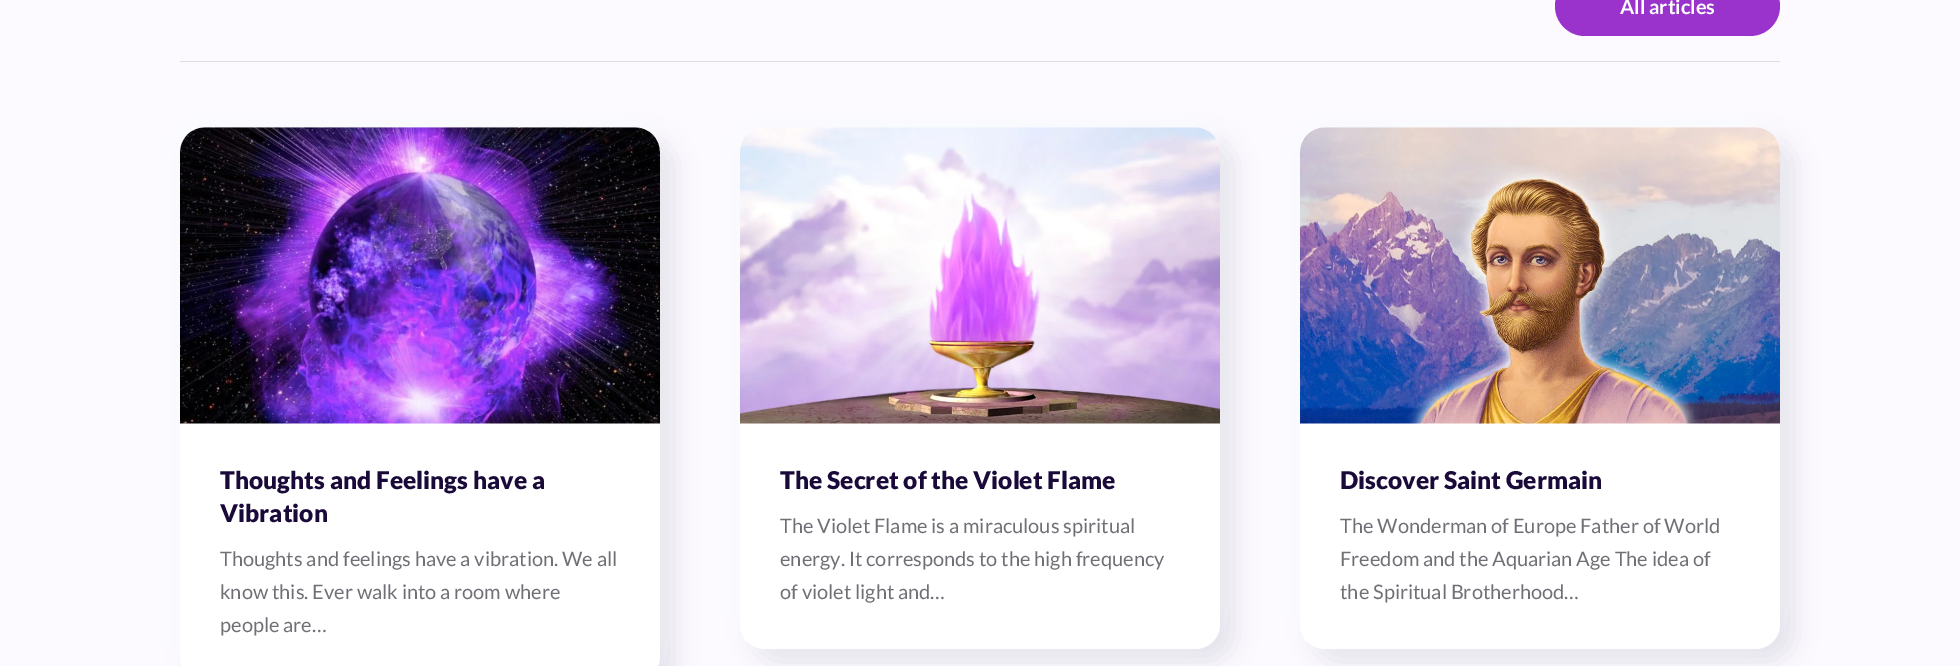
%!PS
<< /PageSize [1960 666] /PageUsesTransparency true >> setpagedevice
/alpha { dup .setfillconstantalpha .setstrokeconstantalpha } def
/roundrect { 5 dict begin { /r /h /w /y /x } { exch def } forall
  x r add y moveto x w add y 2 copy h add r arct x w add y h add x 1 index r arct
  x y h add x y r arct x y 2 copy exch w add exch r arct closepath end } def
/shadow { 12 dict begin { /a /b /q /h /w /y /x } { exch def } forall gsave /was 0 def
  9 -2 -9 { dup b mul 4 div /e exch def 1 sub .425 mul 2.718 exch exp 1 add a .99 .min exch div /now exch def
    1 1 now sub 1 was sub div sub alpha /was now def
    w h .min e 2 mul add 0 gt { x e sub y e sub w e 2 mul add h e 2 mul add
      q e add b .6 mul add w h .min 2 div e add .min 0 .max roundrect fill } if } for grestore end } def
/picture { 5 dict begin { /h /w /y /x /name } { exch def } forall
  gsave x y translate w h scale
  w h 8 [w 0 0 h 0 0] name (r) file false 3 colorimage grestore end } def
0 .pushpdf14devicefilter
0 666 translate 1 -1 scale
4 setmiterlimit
0.988 0.98 1 setrgbcolor
0 0 1960 666 rectfill
0.867 0.867 0.89 setrgbcolor
180 61 1600 1 rectfill
0.6 0.2 0.8 setrgbcolor
1555 -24 225 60 30 roundrect fill
/Lato-Bold [20 0 0 -20 0 0] selectfont
1 setgray
1620 14 moveto (All articles) show
0.651 0.671 0.741 setrgbcolor
193 140 480 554 25 12.5 0.3 shadow
0.98 0.984 1 setrgbcolor
168 115 480 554 25 12.5 1 shadow
1 setgray
180 128 480 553 25 roundrect fill
(img1.rgb) 180 127 480 297 picture
/Lato-Black [24.5 0 0 -24.5 0 0] selectfont
0.102 0.039 0.224 setrgbcolor
220 489 moveto (Thoughts and Feelings have a) show
220 522 moveto (Vibration) show
/Lato-Regular [20 0 0 -20 0 0] selectfont
0.435 0.435 0.463 setrgbcolor
220 566 moveto (Thoughts and feelings have a vibration. We all) show
220 599 moveto (know this. Ever walk into a room where) show
220 632 moveto (people are…) show
0.651 0.671 0.741 setrgbcolor
753 140 480 521 25 12.5 0.3 shadow
0.98 0.984 1 setrgbcolor
728 115 480 521 25 12.5 1 shadow
1 setgray
740 128 480 521 25 roundrect fill
(img2.rgb) 740 127 480 297 picture
/Lato-Black [24.5 0 0 -24.5 0 0] selectfont
0.102 0.039 0.224 setrgbcolor
780 489 moveto (The Secret of the Violet Flame) show
/Lato-Regular [20 0 0 -20 0 0] selectfont
0.435 0.435 0.463 setrgbcolor
780 533 moveto (The Violet Flame is a miraculous spiritual) show
780 566 moveto (energy. It corresponds to the high frequency) show
780 599 moveto (of violet light and…) show
0.651 0.671 0.741 setrgbcolor
1313 140 480 521 25 12.5 0.3 shadow
0.98 0.984 1 setrgbcolor
1288 115 480 521 25 12.5 1 shadow
1 setgray
1300 128 480 521 25 roundrect fill
(img3.rgb) 1300 127 480 297 picture
/Lato-Black [24.5 0 0 -24.5 0 0] selectfont
0.102 0.039 0.224 setrgbcolor
1340 489 moveto (Discover Saint Germain) show
/Lato-Regular [20 0 0 -20 0 0] selectfont
0.435 0.435 0.463 setrgbcolor
1340 533 moveto (The Wonderman of Europe Father of World) show
1340 566 moveto (Freedom and the Aquarian Age The idea of) show
1340 599 moveto (the Spiritual Brotherhood…) show
.poppdf14devicefilter showpage
